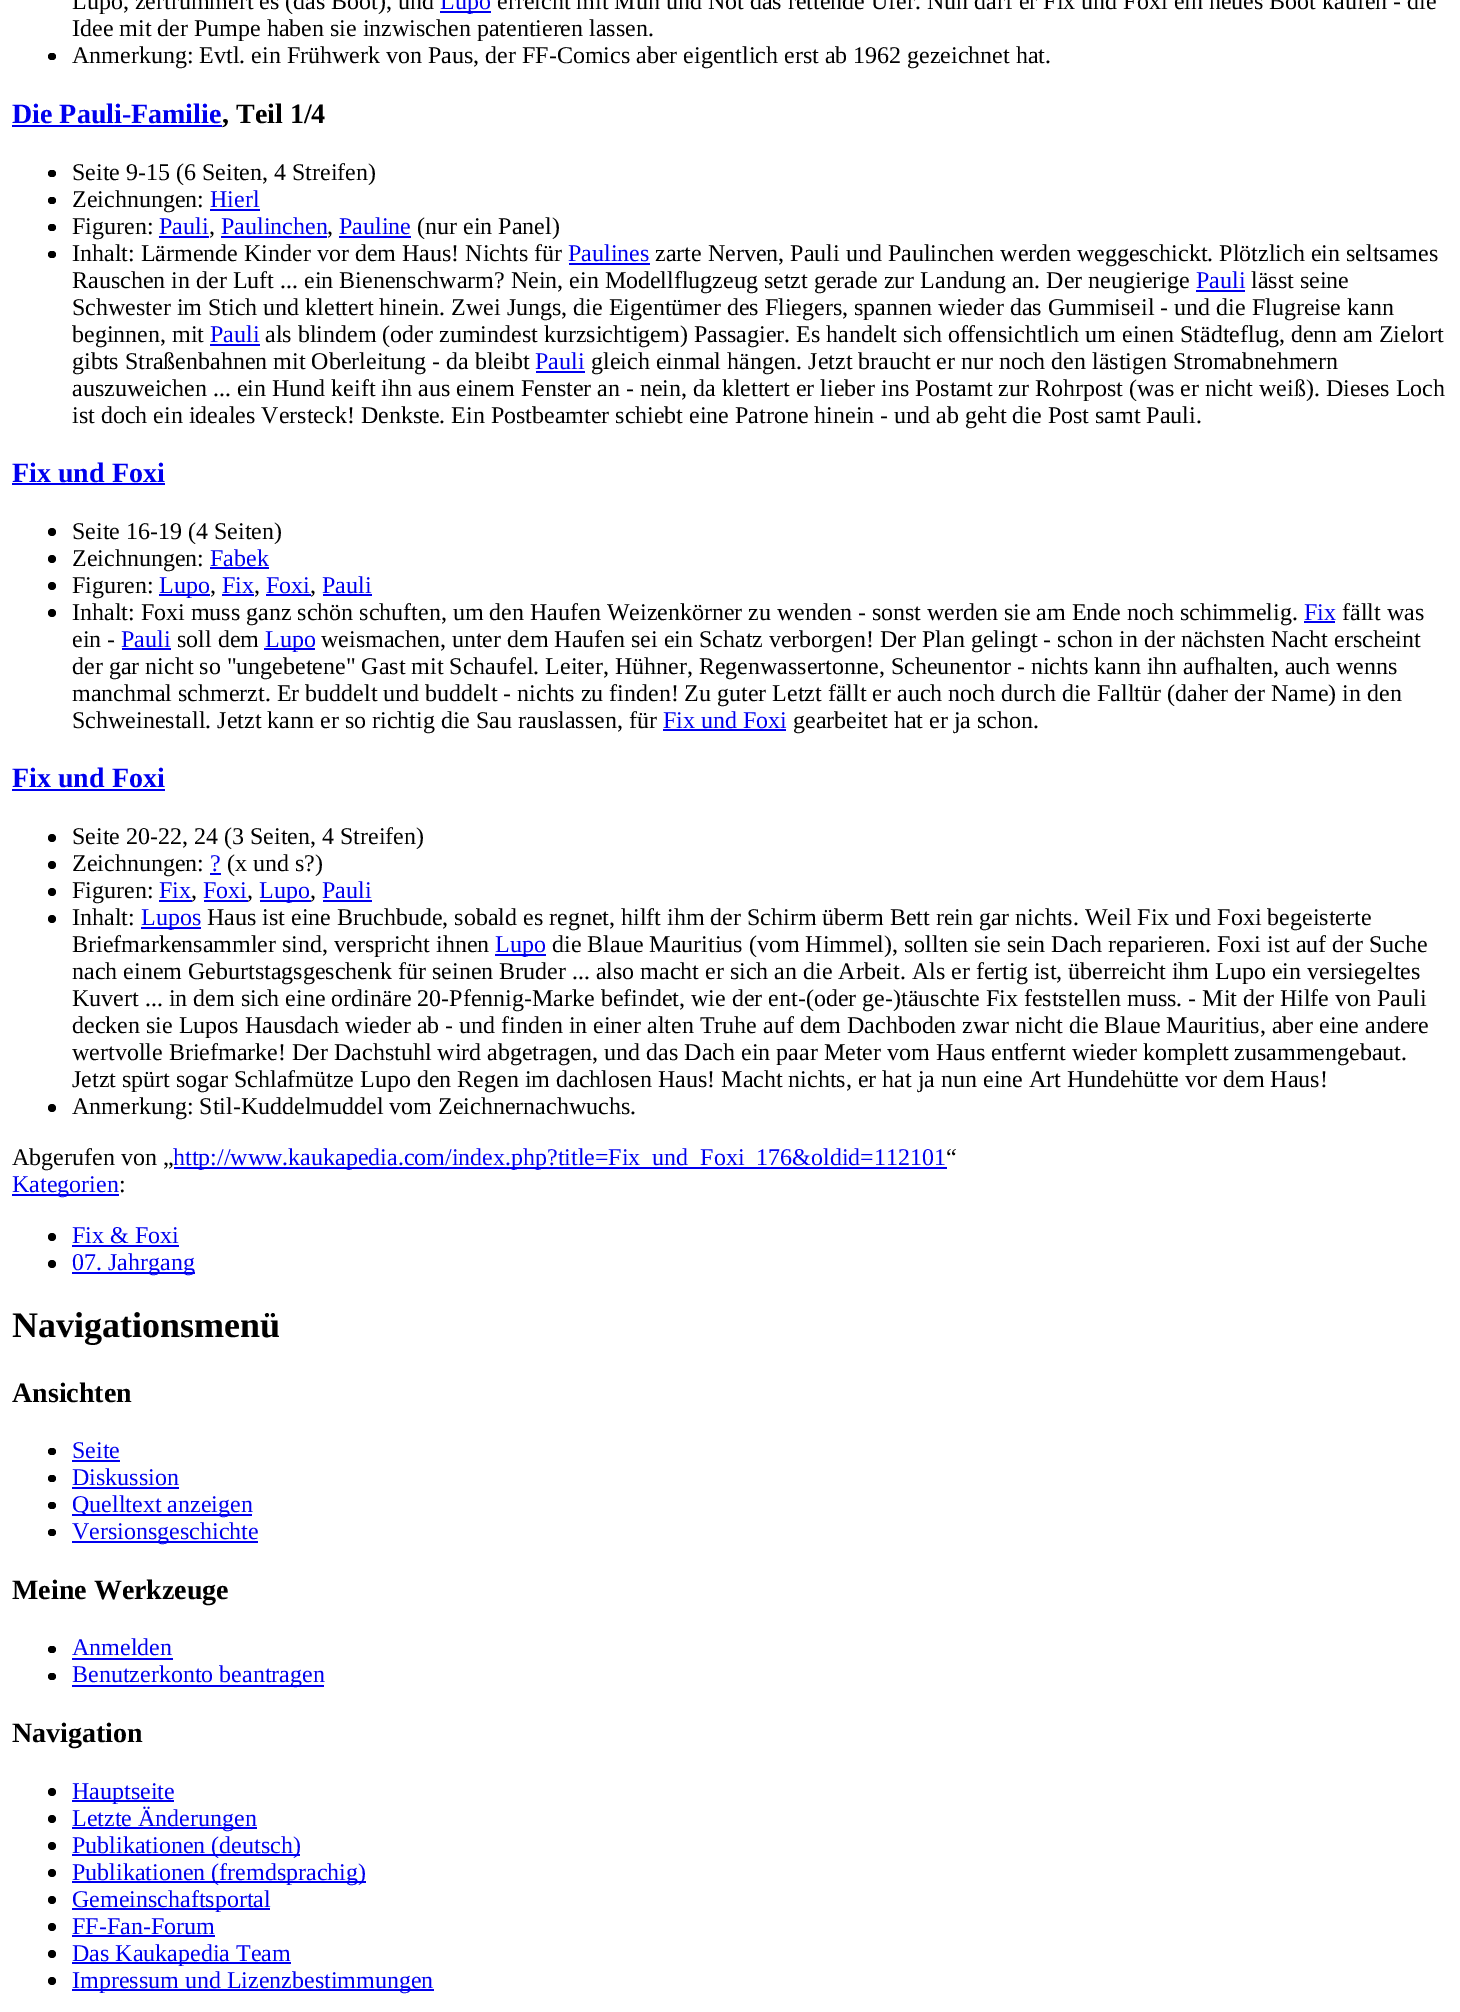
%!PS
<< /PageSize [1460 2012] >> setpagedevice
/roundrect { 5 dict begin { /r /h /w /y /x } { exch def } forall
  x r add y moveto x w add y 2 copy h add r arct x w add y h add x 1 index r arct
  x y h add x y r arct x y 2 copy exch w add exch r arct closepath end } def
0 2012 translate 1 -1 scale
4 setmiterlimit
1 setgray
0 0 1460 2012 rectfill
/LiberationSerif-Regular [24 0 0 -24 0 0] selectfont
0 setgray
72 9 moveto (Lupo, zertrümmert es \(das Boot\), und) show
0 0 0.933 setrgbcolor
440 11 51 2 rectfill
440 9 moveto (Lupo) show
0 setgray
497 9 moveto (erreicht mit Müh und Not das rettende Ufer. Nun darf er Fix und Foxi ein neues Boot kaufen - die) show
72 36 moveto (Idee mit der Pumpe haben sie inzwischen patentieren lassen.) show
48 53 8 7 3.5 roundrect fill
72 63 moveto (Anmerkung: Evtl. ein Frühwerk von Paus, der FF-Comics aber eigentlich erst ab 1962 gezeichnet hat.) show
/LiberationSerif-Bold [28 0 0 -28 0 0] selectfont
0 0 0.933 setrgbcolor
12 123 moveto (Die Pauli-Familie) show
12 125 210 2 rectfill
0 setgray
222 123 moveto (, Teil 1/4) show
48 170 8 7 3.5 roundrect fill
/LiberationSerif-Regular [24 0 0 -24 0 0] selectfont
72 180 moveto (Seite 9-15 \(6 Seiten, 4 Streifen\)) show
48 197 8 7 3.5 roundrect fill
72 207 moveto (Zeichnungen:) show
0 0 0.933 setrgbcolor
210 207 moveto (Hierl) show
210 209 50 2 rectfill
0 setgray
48 224 8 7 3.5 roundrect fill
72 234 moveto (Figuren:) show
0 0 0.933 setrgbcolor
159 234 moveto (Pauli) show
159 236 50 2 rectfill
221 234 moveto (Paulinchen) show
221 236 106 2 rectfill
339 234 moveto (Pauline) show
339 236 72 2 rectfill
0 setgray
417 234 moveto (\(nur ein Panel\)) show
209 234 moveto (,) show
327 234 moveto (,) show
48 251 8 7 3.5 roundrect fill
72 261 moveto (Inhalt: Lärmende Kinder vor dem Haus! Nichts für) show
0 0 0.933 setrgbcolor
568 261 moveto (Paulines) show
569 263 81 2 rectfill
0 setgray
655 261 moveto (zarte Nerven, Pauli und Paulinchen werden weggeschickt. Plötzlich ein seltsames) show
72 288 moveto (Rauschen in der Luft ... ein Bienenschwarm? Nein, ein Modellflugzeug setzt gerade zur Landung an. Der neugierige) show
0 0 0.933 setrgbcolor
1196 288 moveto (Pauli) show
1196 290 49 2 rectfill
0 setgray
1251 288 moveto (lässt seine) show
72 315 moveto (Schwester im Stich und klettert hinein. Zwei Jungs, die Eigentümer des Fliegers, spannen wieder das Gummiseil - und die Flugreise kann) show
72 342 moveto (beginnen, mit) show
0 0 0.933 setrgbcolor
210 342 moveto (Pauli) show
210 344 50 2 rectfill
0 setgray
265 342 moveto (als blindem \(oder zumindest kurzsichtigem\) Passagier. Es handelt sich offensichtlich um einen Städteflug, denn am Zielort) show
72 369 moveto (gibts Straßenbahnen mit Oberleitung - da bleibt) show
0 0 0.933 setrgbcolor
535 369 moveto (Pauli) show
536 371 49 2 rectfill
0 setgray
591 369 moveto (gleich einmal hängen. Jetzt braucht er nur noch den lästigen Stromabnehmern) show
72 396 moveto (auszuweichen ... ein Hund keift ihn aus einem Fenster an - nein, da klettert er lieber ins Postamt zur Rohrpost \(was er nicht weiß\). Dieses Loch) show
72 423 moveto (ist doch ein ideales Versteck! Denkste. Ein Postbeamter schiebt eine Patrone hinein - und ab geht die Post samt Pauli.) show
/LiberationSerif-Bold [28 0 0 -28 0 0] selectfont
0 0 0.933 setrgbcolor
12 482 moveto (Fix und Foxi) show
12 483 153 2 rectfill
0 setgray
newpath 52 532 4 0 360 arc closepath fill
/LiberationSerif-Regular [24 0 0 -24 0 0] selectfont
72 539 moveto (Seite 16-19 \(4 Seiten\)) show
newpath 52 559 4 0 360 arc closepath fill
72 566 moveto (Zeichnungen:) show
0 0 0.933 setrgbcolor
210 566 moveto (Fabek) show
210 567 59 2 rectfill
0 setgray
newpath 52 586 4 0 360 arc closepath fill
72 593 moveto (Figuren:) show
0 0 0.933 setrgbcolor
159 594 51 2 rectfill
159 593 moveto (Lupo) show
222 593 moveto (Fix) show
222 594 32 2 rectfill
266 593 moveto (Foxi) show
266 594 45 2 rectfill
322 593 moveto (Pauli) show
323 594 49 2 rectfill
0 setgray
210 593 moveto (,) show
254 593 moveto (,) show
310 593 moveto (,) show
newpath 52 613 4 0 360 arc closepath fill
72 620 moveto (Inhalt: Foxi muss ganz schön schuften, um den Haufen Weizenkörner zu wenden - sonst werden sie am Ende noch schimmelig.) show
0 0 0.933 setrgbcolor
1304 620 moveto (Fix) show
1304 621 31 2 rectfill
0 setgray
1342 620 moveto (fällt was) show
72 647 moveto (ein -) show
0 0 0.933 setrgbcolor
121 647 moveto (Pauli) show
122 648 49 2 rectfill
0 setgray
177 647 moveto (soll dem) show
0 0 0.933 setrgbcolor
264 648 51 2 rectfill
265 647 moveto (Lupo) show
0 setgray
321 647 moveto (weismachen, unter dem Haufen sei ein Schatz verborgen! Der Plan gelingt - schon in der nächsten Nacht erscheint) show
72 674 moveto (der gar nicht so "ungebetene" Gast mit Schaufel. Leiter, Hühner, Regenwassertonne, Scheunentor - nichts kann ihn aufhalten, auch wenns) show
72 701 moveto (manchmal schmerzt. Er buddelt und buddelt - nichts zu finden! Zu guter Letzt fällt er auch noch durch die Falltür \(daher der Name\) in den) show
72 728 moveto (Schweinestall. Jetzt kann er so richtig die Sau rauslassen, für) show
0 0 0.933 setrgbcolor
663 728 moveto (Fix und Foxi) show
663 729 123 2 rectfill
0 setgray
793 728 moveto (gearbeitet hat er ja schon.) show
/LiberationSerif-Bold [28 0 0 -28 0 0] selectfont
0 0 0.933 setrgbcolor
12 787 moveto (Fix und Foxi) show
12 789 153 2 rectfill
0 setgray
newpath 52 838 4 0 360 arc closepath fill
/LiberationSerif-Regular [24 0 0 -24 0 0] selectfont
72 844 moveto (Seite 20-22, 24 \(3 Seiten, 4 Streifen\)) show
newpath 52 865 4 0 360 arc closepath fill
72 871 moveto (Zeichnungen:) show
0 0 0.933 setrgbcolor
210 871 moveto (?) show
210 873 11 2 rectfill
0 setgray
227 871 moveto (\(x und s?\)) show
newpath 52 892 4 0 360 arc closepath fill
72 898 moveto (Figuren:) show
0 0 0.933 setrgbcolor
159 898 moveto (Fix) show
159 900 33 2 rectfill
203 898 moveto (Foxi) show
204 900 44 2 rectfill
260 900 51 2 rectfill
259 898 moveto (Lupo) show
322 898 moveto (Pauli) show
323 900 49 2 rectfill
0 setgray
191 898 moveto (,) show
247 898 moveto (,) show
310 898 moveto (,) show
newpath 52 919 4 0 360 arc closepath fill
72 925 moveto (Inhalt:) show
0 0 0.933 setrgbcolor
141 927 60 2 rectfill
141 925 moveto (Lupos) show
0 setgray
207 925 moveto (Haus ist eine Bruchbude, sobald es regnet, hilft ihm der Schirm überm Bett rein gar nichts. Weil Fix und Foxi begeisterte) show
72 952 moveto (Briefmarkensammler sind, verspricht ihnen) show
0 0 0.933 setrgbcolor
495 954 51 2 rectfill
495 952 moveto (Lupo) show
0 setgray
552 952 moveto (die Blaue Mauritius \(vom Himmel\), sollten sie sein Dach reparieren. Foxi ist auf der Suche) show
72 979 moveto (nach einem Geburtstagsgeschenk für seinen Bruder ... also macht er sich an die Arbeit. Als er fertig ist, überreicht ihm Lupo ein versiegeltes) show
72 1006 moveto (Kuvert ... in dem sich eine ordinäre 20-Pfennig-Marke befindet, wie der ent-\(oder ge-\)täuschte Fix feststellen muss. - Mit der Hilfe von Pauli) show
72 1033 moveto (decken sie Lupos Hausdach wieder ab - und finden in einer alten Truhe auf dem Dachboden zwar nicht die Blaue Mauritius, aber eine andere) show
72 1060 moveto (wertvolle Briefmarke! Der Dachstuhl wird abgetragen, und das Dach ein paar Meter vom Haus entfernt wieder komplett zusammengebaut.) show
72 1087 moveto (Jetzt spürt sogar Schlafmütze Lupo den Regen im dachlosen Haus! Macht nichts, er hat ja nun eine Art Hundehütte vor dem Haus!) show
newpath 52 1108 4 0 360 arc closepath fill
72 1114 moveto (Anmerkung: Stil-Kuddelmuddel vom Zeichnernachwuchs.) show
12 1165 moveto (Abgerufen von „) show
0 0 0.933 setrgbcolor
174 1167 773 2 rectfill
173 1165 moveto (http://www.kaukapedia.com/index.php?title=Fix_und_Foxi_176&oldid=112101) show
0 setgray
946 1165 moveto (“) show
0 0 0.933 setrgbcolor
12 1194 107 2 rectfill
12 1192 moveto (Kategorien) show
0 setgray
119 1192 moveto (:) show
newpath 52 1237 4 0 360 arc closepath fill
0 0 0.933 setrgbcolor
72 1243 moveto (Fix & Foxi) show
72 1245 107 2 rectfill
0 setgray
newpath 52 1264 4 0 360 arc closepath fill
0 0 0.933 setrgbcolor
72 1272 123 2 rectfill
72 1270 moveto (07. Jahrgang) show
/LiberationSerif-Bold [36 0 0 -36 0 0] selectfont
0 setgray
12 1337 moveto (Navigationsmenü) show
/LiberationSerif-Bold [28 0 0 -28 0 0] selectfont
12 1402 moveto (Ansichten) show
48 1448 8 7 3.5 roundrect fill
/LiberationSerif-Regular [24 0 0 -24 0 0] selectfont
0 0 0.933 setrgbcolor
72 1458 moveto (Seite) show
72 1460 48 2 rectfill
0 setgray
48 1475 8 7 3.5 roundrect fill
0 0 0.933 setrgbcolor
72 1485 moveto (Diskussion) show
72 1487 107 2 rectfill
0 setgray
48 1502 8 7 3.5 roundrect fill
0 0 0.933 setrgbcolor
72 1514 180 2 rectfill
72 1512 moveto (Quelltext anzeigen) show
0 setgray
48 1529 8 7 3.5 roundrect fill
0 0 0.933 setrgbcolor
72 1541 186 2 rectfill
72 1539 moveto (Versionsgeschichte) show
/LiberationSerif-Bold [28 0 0 -28 0 0] selectfont
0 setgray
12 1599 moveto (Meine Werkzeuge) show
48 1646 8 7 3.5 roundrect fill
/LiberationSerif-Regular [24 0 0 -24 0 0] selectfont
0 0 0.933 setrgbcolor
72 1655 moveto (Anmelden) show
72 1658 101 2 rectfill
0 setgray
48 1673 8 7 3.5 roundrect fill
0 0 0.933 setrgbcolor
72 1685 252 2 rectfill
72 1682 moveto (Benutzerkonto beantragen) show
/LiberationSerif-Bold [28 0 0 -28 0 0] selectfont
0 setgray
12 1742 moveto (Navigation) show
newpath 52 1792 4 0 360 arc closepath fill
0 0 0.933 setrgbcolor
72 1800 102 2 rectfill
/LiberationSerif-Regular [24 0 0 -24 0 0] selectfont
72 1799 moveto (Hauptseite) show
0 setgray
newpath 52 1819 4 0 360 arc closepath fill
0 0 0.933 setrgbcolor
72 1827 185 2 rectfill
72 1826 moveto (Letzte Änderungen) show
0 setgray
newpath 52 1846 4 0 360 arc closepath fill
0 0 0.933 setrgbcolor
72 1854 228 2 rectfill
72 1853 moveto (Publikationen \(deutsch\)) show
0 setgray
newpath 52 1873 4 0 360 arc closepath fill
0 0 0.933 setrgbcolor
72 1881 294 2 rectfill
72 1880 moveto (Publikationen \(fremdsprachig\)) show
0 setgray
newpath 52 1900 4 0 360 arc closepath fill
0 0 0.933 setrgbcolor
72 1908 198 2 rectfill
72 1907 moveto (Gemeinschaftsportal) show
0 setgray
newpath 52 1927 4 0 360 arc closepath fill
0 0 0.933 setrgbcolor
72 1934 moveto (FF-Fan-Forum) show
72 1935 143 2 rectfill
0 setgray
newpath 52 1954 4 0 360 arc closepath fill
0 0 0.933 setrgbcolor
72 1962 219 2 rectfill
72 1961 moveto (Das Kaukapedia Team) show
0 setgray
newpath 52 1981 4 0 360 arc closepath fill
0 0 0.933 setrgbcolor
72 1989 362 2 rectfill
72 1988 moveto (Impressum und Lizenzbestimmungen) show
showpage
